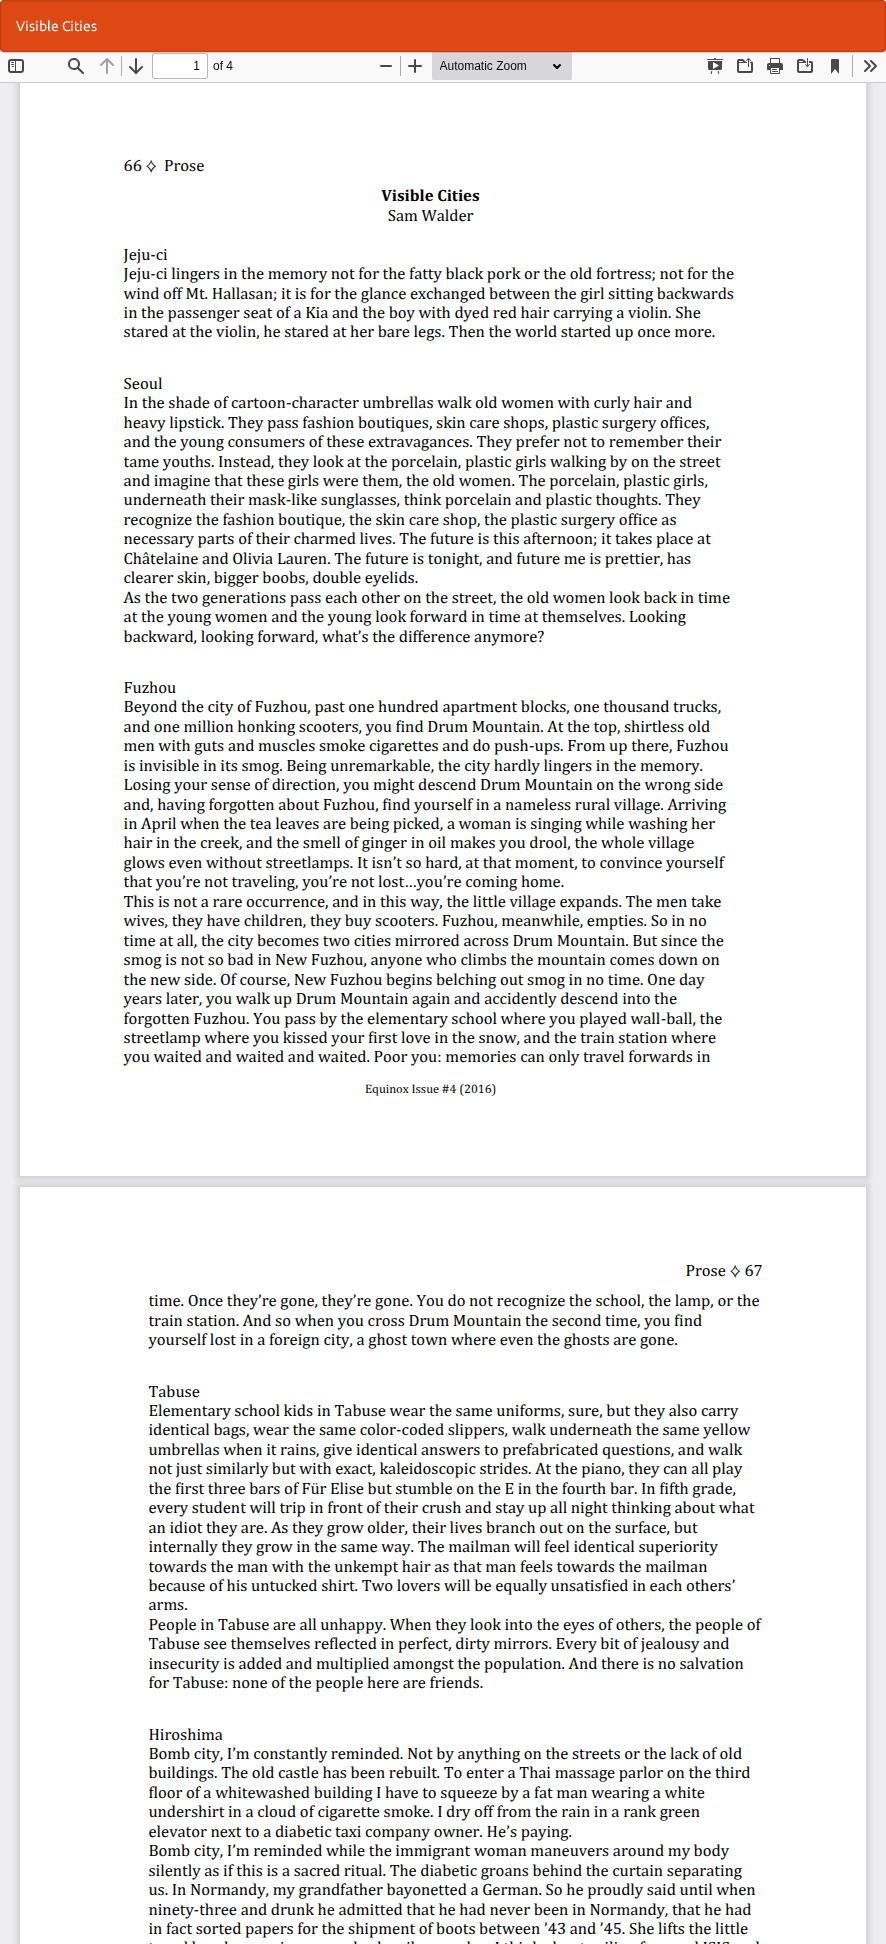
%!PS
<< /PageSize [886 1944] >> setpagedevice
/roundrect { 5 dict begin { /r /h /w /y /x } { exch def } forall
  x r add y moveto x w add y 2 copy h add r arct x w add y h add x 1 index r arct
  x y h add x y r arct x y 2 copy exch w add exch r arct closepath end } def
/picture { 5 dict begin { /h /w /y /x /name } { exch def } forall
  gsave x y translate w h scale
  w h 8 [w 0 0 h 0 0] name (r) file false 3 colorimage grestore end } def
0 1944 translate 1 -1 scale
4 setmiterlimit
1 setgray
0 0 886 1944 rectfill
(img1.rgb) 0 50 886 1894 picture
0.867 0.282 0.078 setrgbcolor
0.5 0.5 885 51 3.5 roundrect gsave fill grestore
0.749 0.243 0.067 setrgbcolor
stroke
/Ubuntu-Regular [14 0 0 -14 0 0] selectfont
1 setgray
16 31 moveto (Visible Cities) show
showpage
